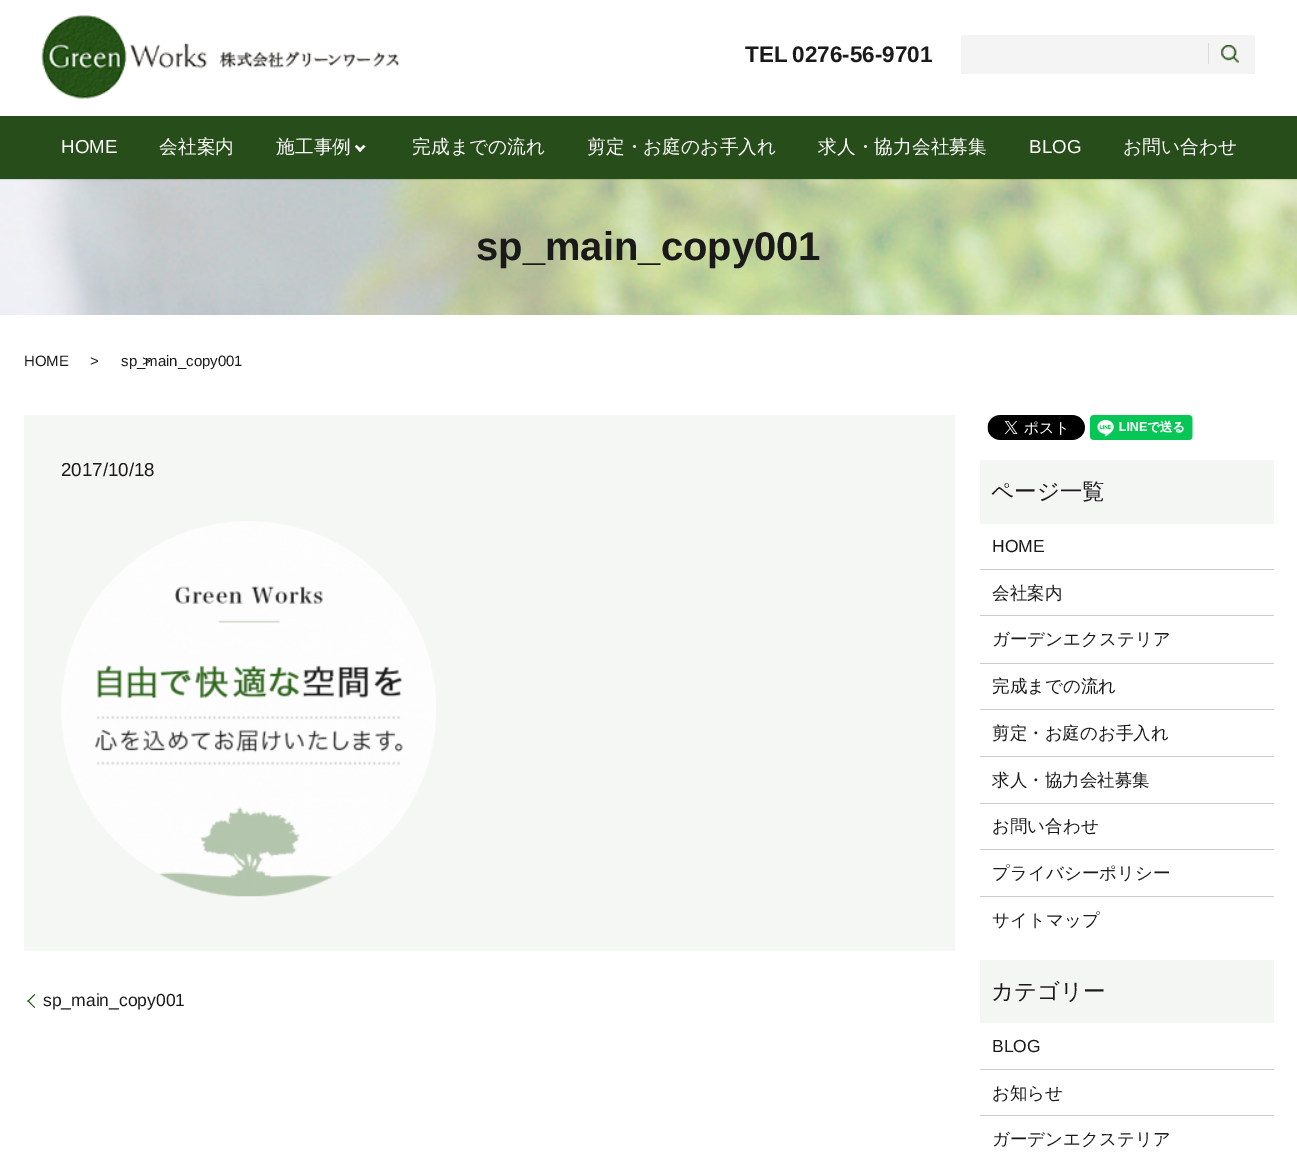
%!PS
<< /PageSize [1297 1158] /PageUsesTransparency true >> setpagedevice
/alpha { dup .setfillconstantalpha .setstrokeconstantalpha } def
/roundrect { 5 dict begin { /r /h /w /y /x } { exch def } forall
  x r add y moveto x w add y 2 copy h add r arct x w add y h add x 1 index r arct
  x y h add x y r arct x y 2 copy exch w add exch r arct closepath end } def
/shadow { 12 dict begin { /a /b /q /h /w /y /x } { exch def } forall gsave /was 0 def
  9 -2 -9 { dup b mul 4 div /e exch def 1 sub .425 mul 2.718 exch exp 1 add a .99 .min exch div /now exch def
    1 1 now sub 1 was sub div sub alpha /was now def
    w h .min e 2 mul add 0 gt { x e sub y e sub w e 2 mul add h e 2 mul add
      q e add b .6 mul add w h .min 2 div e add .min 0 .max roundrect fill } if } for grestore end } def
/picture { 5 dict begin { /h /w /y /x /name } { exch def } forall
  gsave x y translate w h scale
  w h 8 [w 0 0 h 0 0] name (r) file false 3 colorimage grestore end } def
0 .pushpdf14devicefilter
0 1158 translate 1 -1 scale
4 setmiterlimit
1 setgray
0 0 1297 1158 rectfill
(img3.rgb) 0 179 1297 136 picture
0 setgray
0 1 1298 179 0 0.5 0.1 shadow
1 setgray
0 0 1297 116 rectfill
(img1.rgb) 41 14 358 85 picture
/LiberationSans-Bold [22.5 0 0 -22.5 0 0] selectfont
0.106 0.102 0.102 setrgbcolor
745 62 moveto (TEL) show
792 62 moveto (0276-56-9701) show
0.957 setgray
961 35 294 39 rectfill
0.851 setgray
1208 43 1 21 rectfill
(img2.rgb) 1221 45 18 18 picture
0.153 0.306 0.102 setrgbcolor
0 116 1297 63 rectfill
/LiberationSans-Regular [18.75 0 0 -18.75 0 0] selectfont
1 setgray
61 153 moveto (HOME) show
/WenQuanYiZenHei-Medium [18.75 0 0 -18.75 0 0] selectfont
159 153 moveto (会社案内) show
276 153 moveto (施工事例) show
newpath 365.5 146.5 moveto 360 152 lineto 358.5 150 lineto 363.5 145 lineto closepath fill
newpath 362 150 moveto 360 152 lineto 355 146.5 lineto 356.5 145 lineto closepath fill
412 153 moveto (完成までの流れ) show
587 153 moveto (剪定・お庭のお手入れ) show
818 153 moveto (求人・協力会社募集) show
/LiberationSans-Regular [18.75 0 0 -18.75 0 0] selectfont
1029 153 moveto (BLOG) show
/WenQuanYiZenHei-Medium [18.75 0 0 -18.75 0 0] selectfont
1123 153 moveto (お問い合わせ) show
/LiberationSans-Bold [40 0 0 -40 0 0] selectfont
0.106 0.102 0.102 setrgbcolor
476 260 moveto (sp_main_copy001) show
/LiberationSans-Regular [15 0 0 -15 0 0] selectfont
24 366 moveto (HOME) show
90 366 moveto (>) show
142 366 moveto (>) show
121 366 moveto (sp_main_copy001) show
0.961 0.969 0.957 setrgbcolor
24 415 931 536 rectfill
/LiberationSans-Regular [18.75 0 0 -18.75 0 0] selectfont
0.106 0.102 0.102 setrgbcolor
61 476 moveto (2017/10/18) show
(img4.rgb) 61 521 375 376 picture
0.153 0.306 0.102 setrgbcolor
newpath 27.5 1001 moveto 34.5 994 lineto 35 995 lineto 28 1002 lineto closepath fill
/LiberationSans-Regular [17.5 0 0 -17.5 0 0] selectfont
0.106 0.102 0.102 setrgbcolor
43 1006 moveto (sp_main_copy001) show
0.153 0.306 0.102 setrgbcolor
newpath 34.5 1008 moveto 27.5 1001 lineto 28 1000 lineto 35 1007.5 lineto closepath fill
(img5.rgb) 987 415 98 25 picture
(img6.rgb) 1090 415 103 25 picture
0.957 0.965 0.957 setrgbcolor
980 460 294 64 rectfill
/WenQuanYiZenHei-Medium [22.5 0 0 -22.5 0 0] selectfont
0.106 0.102 0.102 setrgbcolor
991 499 moveto (ページ一覧) show
0.8 setgray
980 569 294 1 rectfill
/LiberationSans-Regular [17.5 0 0 -17.5 0 0] selectfont
0.106 0.102 0.102 setrgbcolor
992 552 moveto (HOME) show
0.8 setgray
980 615 294 1 rectfill
/WenQuanYiZenHei-Medium [17.5 0 0 -17.5 0 0] selectfont
0.106 0.102 0.102 setrgbcolor
992 599 moveto (会社案内) show
0.8 setgray
980 663 294 1 rectfill
0.106 0.102 0.102 setrgbcolor
992 645 moveto (ガーデンエクステリア) show
0.8 setgray
980 709 294 1 rectfill
0.106 0.102 0.102 setrgbcolor
992 692 moveto (完成までの流れ) show
0.8 setgray
980 756 294 1 rectfill
0.106 0.102 0.102 setrgbcolor
992 739 moveto (剪定・お庭のお手入れ) show
0.8 setgray
980 803 294 1 rectfill
0.106 0.102 0.102 setrgbcolor
992 786 moveto (求人・協力会社募集) show
0.8 setgray
980 849 294 1 rectfill
0.106 0.102 0.102 setrgbcolor
992 832 moveto (お問い合わせ) show
0.8 setgray
980 896 294 1 rectfill
0.106 0.102 0.102 setrgbcolor
992 879 moveto (プライバシーポリシー) show
992 926 moveto (サイトマップ) show
0.957 0.965 0.957 setrgbcolor
980 960 294 63 rectfill
/WenQuanYiZenHei-Medium [22.5 0 0 -22.5 0 0] selectfont
0.106 0.102 0.102 setrgbcolor
991 999 moveto (カテゴリー) show
0.8 setgray
980 1069 294 1 rectfill
/LiberationSans-Regular [17.5 0 0 -17.5 0 0] selectfont
0.106 0.102 0.102 setrgbcolor
992 1052 moveto (BLOG) show
0.8 setgray
980 1115 294 1 rectfill
/WenQuanYiZenHei-Medium [17.5 0 0 -17.5 0 0] selectfont
0.106 0.102 0.102 setrgbcolor
992 1099 moveto (お知らせ) show
992 1145 moveto (ガーデンエクステリア) show
.poppdf14devicefilter showpage
